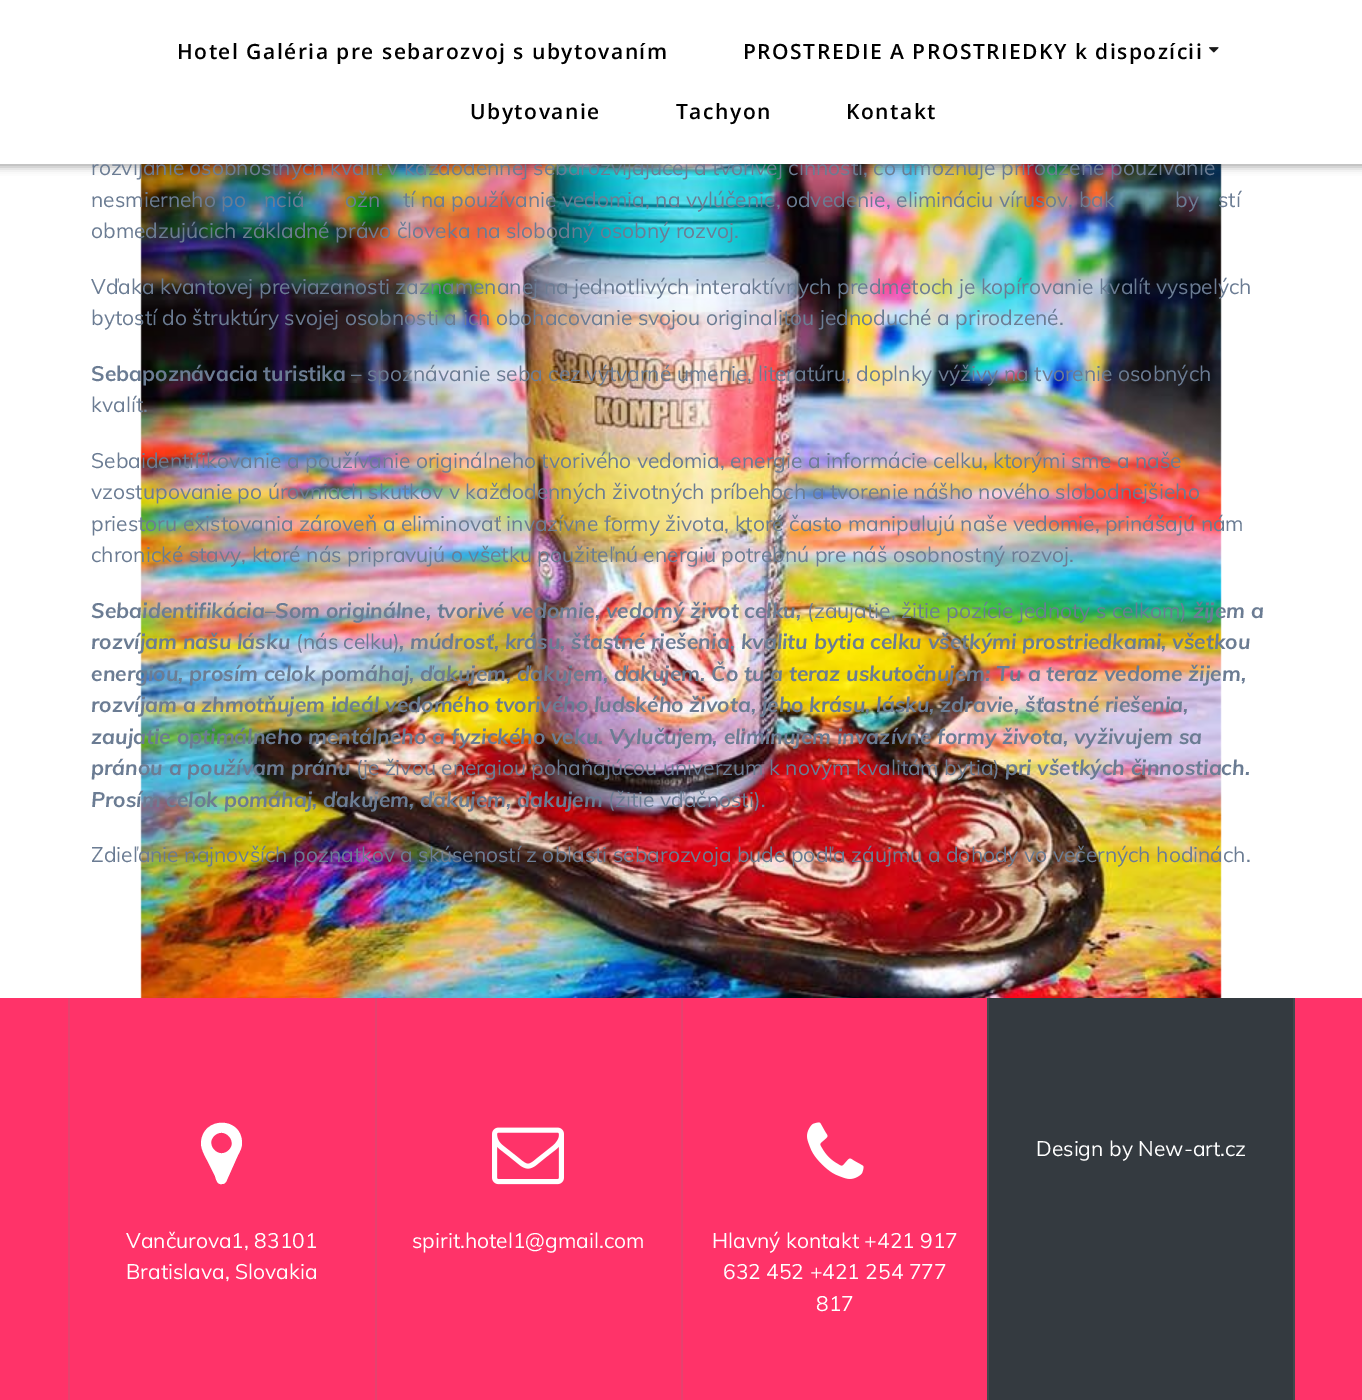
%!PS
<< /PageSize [1362 1400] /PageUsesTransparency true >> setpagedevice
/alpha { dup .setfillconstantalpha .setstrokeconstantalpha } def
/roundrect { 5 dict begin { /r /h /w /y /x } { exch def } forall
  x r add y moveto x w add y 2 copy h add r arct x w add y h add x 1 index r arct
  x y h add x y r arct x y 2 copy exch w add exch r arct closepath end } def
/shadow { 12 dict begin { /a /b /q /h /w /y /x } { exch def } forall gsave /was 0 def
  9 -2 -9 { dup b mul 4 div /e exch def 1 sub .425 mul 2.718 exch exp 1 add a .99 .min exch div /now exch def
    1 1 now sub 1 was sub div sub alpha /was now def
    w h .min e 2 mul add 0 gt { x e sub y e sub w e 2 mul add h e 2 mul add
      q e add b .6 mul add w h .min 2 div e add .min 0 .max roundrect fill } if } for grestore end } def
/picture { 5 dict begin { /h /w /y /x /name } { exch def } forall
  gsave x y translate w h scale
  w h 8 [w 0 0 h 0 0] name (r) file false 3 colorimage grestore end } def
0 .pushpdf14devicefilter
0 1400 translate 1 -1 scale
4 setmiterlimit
1 setgray
0 0 1362 1400 rectfill
(img1.rgb) 140 164 1082 834 picture
0 setgray
-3 -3 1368 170 0 4 0.33 shadow
/Muli-Regular [21 0 0 -21 0 0] selectfont
0.42 0.486 0.576 setrgbcolor
91 175 moveto (rozvíjanie osobnostných kvalít v každodennej sebarozvíjajúcej a tvorivej činnosti, čo umožňuje prirodzené používanie) show
1 setgray
0 0 1362 164 rectfill
/OpenSans-SemiBold [21 0 0 -21 0 0] selectfont
0 setgray
177 59 moveto 1.5 0 (Hotel Galéria pre sebarozvoj s ubytovaním) ashow
743 59 moveto 1.5 0 (PROSTREDIE A PROSTRIEDKY k dispozícii) ashow
(img2.rgb) 1209 47 10 6 picture
470 119 moveto 1.5 0 (Ubytovanie) ashow
676 119 moveto 1.5 0 (Tachyon) ashow
846 119 moveto 1.5 0 (Kontakt) ashow
/Muli-Regular [21 0 0 -21 0 0] selectfont
0.42 0.486 0.576 setrgbcolor
91 207 moveto (nesmierneho po) show
264 207 moveto (nciá) show
345 207 moveto (ožn) show
403 207 moveto (tí na používanie vedomia, na vylúčenie, odvedenie, elimináciu vírusov, bak) show
1175 207 moveto (by) show
1218 207 moveto (stí) show
91 238 moveto (obmedzujúcich základné právo človeka na slobodný osobný rozvoj.) show
91 294 moveto (Vďaka kvantovej previazanosti zaznamenanej na jednotlivých interaktívnych predmetoch je kopírovanie kvalít vyspelých) show
91 325 moveto (bytostí do štruktúry svojej osobnosti a ich obohacovanie svojou originalitou jednoduché a prirodzené.) show
/Muli-Bold [21 0 0 -21 0 0] selectfont
91 381 moveto (Sebapoznávacia turistika) show
/Muli-Regular [21 0 0 -21 0 0] selectfont
351 381 moveto (– spoznávanie seba cez výtvarné umenie, literatúru, doplnky výživy na tvorenie osobných) show
91 412 moveto (kvalít.) show
91 468 moveto (Sebaidentifikovanie a používanie originálneho tvorivého vedomia, energie a informácie celku, ktorými sme a naše) show
91 499 moveto (vzostupovanie po úrovniach skutkov v každodenných životných príbehoch a tvorenie nášho nového slobodnejšieho) show
91 531 moveto (priestoru existovania zároveň a eliminovať invazívne formy života, ktoré často manipulujú naše vedomie, prinášajú nám) show
91 562 moveto (chronické stavy, ktoré nás pripravujú o všetku použiteľnú energiu potrebnú pre náš osobnostný rozvoj.) show
/Muli-BoldItalic [21 0 0 -21 0 0] selectfont
91 618 moveto (Sebaidentifikácia) show
/Muli-Italic [21 0 0 -21 0 0] selectfont
265 618 moveto (–) show
/Muli-BoldItalic [21 0 0 -21 0 0] selectfont
275 618 moveto (Som originálne, tvorivé vedomie, vedomý život celku,) show
/Muli-Regular [21 0 0 -21 0 0] selectfont
807 618 moveto (\(zaujatie, žitie pozície jednoty s celkom\)) show
/Muli-BoldItalic [21 0 0 -21 0 0] selectfont
1193 618 moveto (žijem a) show
91 649 moveto (rozvíjam našu lásku) show
/Muli-Regular [21 0 0 -21 0 0] selectfont
296 649 moveto (\(nás celku\)) show
/Muli-BoldItalic [21 0 0 -21 0 0] selectfont
399 649 moveto (, múdrosť, krásu, šťastné riešenia, kvalitu bytia celku všetkými prostriedkami, všetkou) show
91 681 moveto (energiou, prosím celok pomáhaj, ďakujem, ďakujem, ďakujem. Čo tu a teraz uskutočnujem: Tu a teraz vedome žijem,) show
91 712 moveto (rozvíjam a zhmotňujem ideál vedomého tvorivého ľudského života, jeho krásu, lásku, zdravie, šťastné riešenia,) show
91 744 moveto (zaujatie optimálneho mentálneho a fyzického veku. Vylučujem, eliminujem invazívne formy života, vyživujem sa) show
91 775 moveto (pránou a používam pránu) show
/Muli-Regular [21 0 0 -21 0 0] selectfont
356 775 moveto (\(je živou energiou pohaňajúcou univerzum k novým kvalitám bytia\)) show
/Muli-BoldItalic [21 0 0 -21 0 0] selectfont
1005 775 moveto (pri všetkých činnostiach.) show
91 807 moveto (Prosím celok pomáhaj, ďakujem, ďakujem, ďakujem) show
/Muli-Regular [21 0 0 -21 0 0] selectfont
608 807 moveto (\(žitie vďačnosti\)) show
/Muli-Italic [21 0 0 -21 0 0] selectfont
761 807 moveto (.) show
/Muli-Regular [21 0 0 -21 0 0] selectfont
91 862 moveto (Zdieľanie najnovších poznatkov a skúseností z oblasti sebarozvoja bude podľa záujmu a dohody vo večerných hodinách.) show
1 0.2 0.412 setrgbcolor
0 998 1362 402 rectfill
0.204 0.227 0.251 setrgbcolor
989 998 304 402 rectfill
0.263 0.282 0.302 setrgbcolor
1293 998 2 402 rectfill
987 998 2 402 rectfill
1 setgray
1036 1156 moveto (Design by New-art.cz) show
0.902 0.259 0.431 setrgbcolor
68 998 2 402 rectfill
1 setgray
newpath 229 1150 moveto 238 1141 224 1126 214 1136 curveto 205 1145 219 1160 229 1150 curveto closepath 242 1143 moveto 242 1148 240 1151 238 1155 curveto 226 1182 lineto 225 1183 224 1184 222 1184 curveto 217 1185 216 1179 215 1176 curveto 210 1166 lineto 207 1159 201 1151 201 1143 curveto 202 1116 242 1116 242 1143 curveto closepath fill
126 1248 moveto (Vančurova1, 83101) show
126 1279 moveto (Bratislava, Slovakia) show
0.902 0.259 0.431 setrgbcolor
375 998 2 402 rectfill
(img3.rgb) 492 1127 72 58 picture
1 setgray
412 1248 moveto (spirit.hotel1@gmail.com) show
0.902 0.259 0.431 setrgbcolor
681 998 2 402 rectfill
(img4.rgb) 807 1122 57 57 picture
1 setgray
712 1248 moveto (Hlavný kontakt +421 917) show
723 1279 moveto (632 452 +421 254 777) show
816 1311 moveto (817) show
.poppdf14devicefilter showpage
